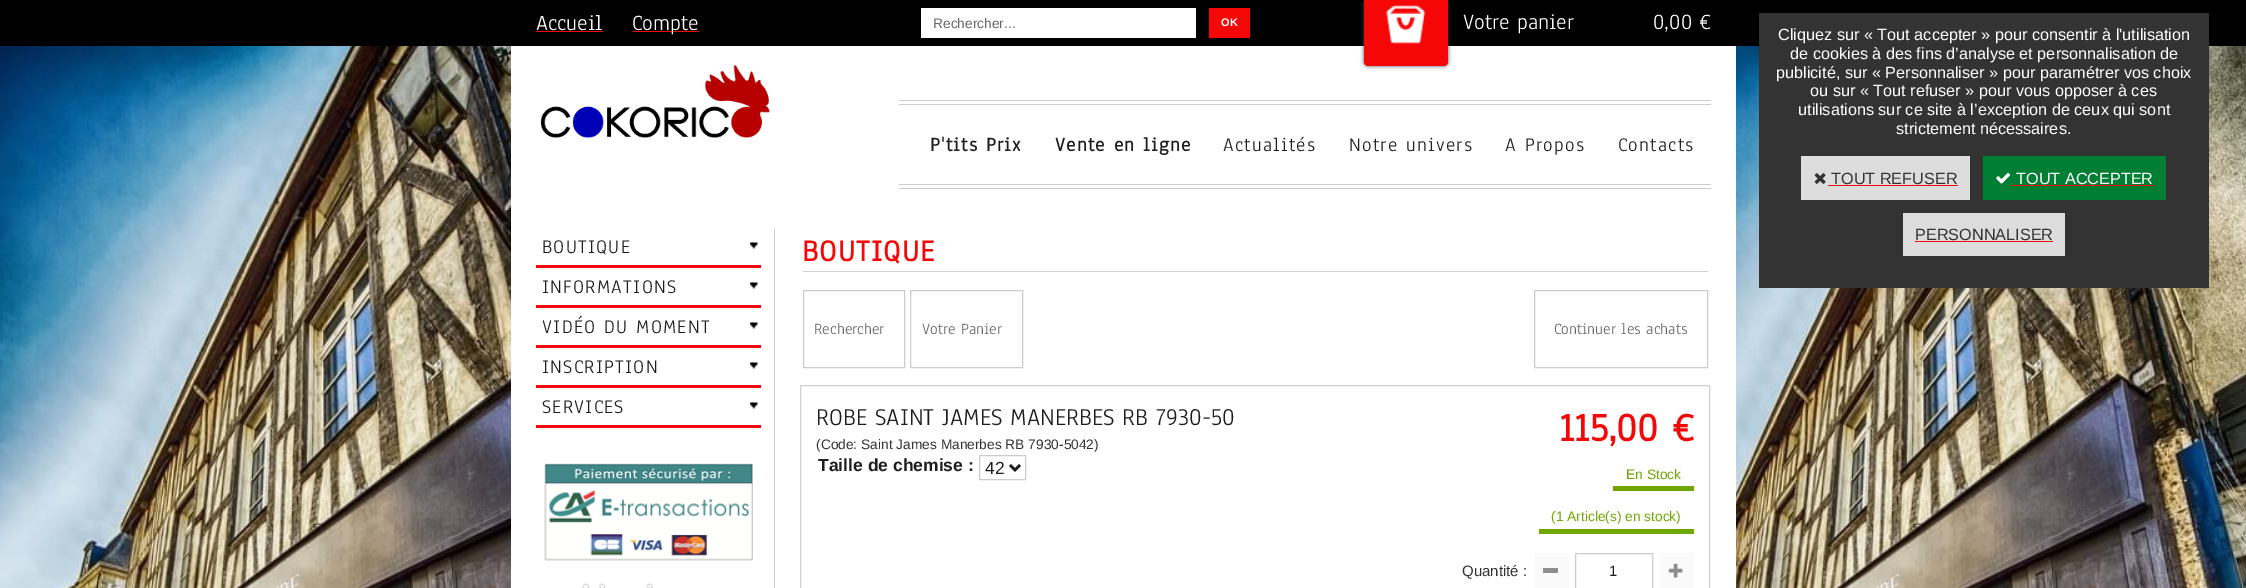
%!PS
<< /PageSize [2246 588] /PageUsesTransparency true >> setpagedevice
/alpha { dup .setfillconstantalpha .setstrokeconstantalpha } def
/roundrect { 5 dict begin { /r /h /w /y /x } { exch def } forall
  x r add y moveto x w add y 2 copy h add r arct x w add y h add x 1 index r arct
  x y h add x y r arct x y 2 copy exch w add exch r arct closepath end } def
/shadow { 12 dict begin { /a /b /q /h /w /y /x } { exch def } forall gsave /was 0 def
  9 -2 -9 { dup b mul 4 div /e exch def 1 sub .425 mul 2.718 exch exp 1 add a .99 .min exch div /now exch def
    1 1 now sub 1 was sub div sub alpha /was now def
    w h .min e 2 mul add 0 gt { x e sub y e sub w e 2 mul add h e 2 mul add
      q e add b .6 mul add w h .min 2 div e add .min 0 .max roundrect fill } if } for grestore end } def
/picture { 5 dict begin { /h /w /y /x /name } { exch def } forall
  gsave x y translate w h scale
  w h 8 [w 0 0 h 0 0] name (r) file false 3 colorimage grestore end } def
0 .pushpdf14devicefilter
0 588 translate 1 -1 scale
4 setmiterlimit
1 setgray
0 0 2246 588 rectfill
(img1.rgb) 0 46 2246 542 picture
0 setgray
0 0 2246 46 rectfill
1 setgray
511 46 1225 542 rectfill
/Anaheim-Regular [22.5 0 0 -22.5 0 0] selectfont
536 30 moveto (Accueil) show
0.961 0.027 0.027 setrgbcolor
536 31 67 1 rectfill
633 31 66 1 rectfill
1 setgray
632 30 moveto (Compte) show
921 8 275 30 rectfill
/LiberationSans-Regular [13.75 0 0 -13.75 0 0] selectfont
0.4 setgray
933 28 moveto (Rechercher...) show
0.961 0.027 0.027 setrgbcolor
1209 8 41 30 rectfill
/LiberationSans-Bold [11 0 0 -11 0 0] selectfont
1 setgray
1221 26 moveto (OK) show
0.278 setgray
1364 0 84 66 4 2 1 shadow
0.961 0.027 0.027 setrgbcolor
newpath 1364 0 moveto 1448 0 lineto 1448 62 lineto 1448 64 1446 66 1444 66 curveto 1368 66 lineto 1366 66 1364 64 1364 62 curveto closepath fill
(img2.rgb) 1386 5 40 39 picture
/Anaheim-Regular [22.5 0 0 -22.5 0 0] selectfont
1 setgray
1463 29 moveto (Votre panier) show
1653 29 moveto (0,00 €) show
(img3.rgb) 540 65 230 73 picture
0.8 setgray
899 100 812 1 rectfill
899 104 812 1 rectfill
899 184 812 1 rectfill
899 188 812 1 rectfill
/Anaheim-Bold [20 0 0 -20 0 0] selectfont
0.114 setgray
930 151 moveto 1.25 0 (P'tits Prix) ashow
1055 151 moveto 1.25 0 (Vente en ligne) ashow
/Anaheim-Regular [20 0 0 -20 0 0] selectfont
1223 151 moveto 1.25 0 (Actualités) ashow
1349 151 moveto 1.25 0 (Notre univers) ashow
1505 151 moveto 1.25 0 (A Propos) ashow
1618 151 moveto 1.25 0 (Contacts) ashow
0.2 setgray
1759 13 450 275 rectfill
/LiberationSans-Regular [16.25 0 0 -16.25 0 0] selectfont
1 setgray
1778 40 moveto (Cliquez sur « Tout accepter » pour consentir à l'utilisation) show
1790 59 moveto (de cookies à des fins d’analyse et personnalisation de) show
1776 78 moveto (publicité, sur « Personnaliser » pour paramétrer vos choix) show
1810 96 moveto (ou sur « Tout refuser » pour vous opposer à ces) show
1798 115 moveto (utilisations sur ce site à l’exception de ceux qui sont) show
1896 134 moveto (strictement nécessaires.) show
0.867 setgray
1801 156 169 44 rectfill
(img4.rgb) 1814 173 12 11 picture
0.2 setgray
1831 184 moveto (TOUT REFUSER) show
0.961 0.027 0.027 setrgbcolor
1828 185 130 1 rectfill
0 0.494 0.2 setrgbcolor
1983 156 183 44 rectfill
(img5.rgb) 1996 172 15 12 picture
1 setgray
2016 184 moveto (TOUT ACCEPTER) show
0.961 0.027 0.027 setrgbcolor
2011 185 143 1 rectfill
0.867 setgray
1903 213 162 43 rectfill
0.2 setgray
1915 240 moveto (PERSONNALISER) show
0.961 0.027 0.027 setrgbcolor
1915 241 138 1 rectfill
0.82 setgray
774 228 1 360 rectfill
(img6.rgb) 750 242 8 7 picture
0.961 0.027 0.027 setrgbcolor
536 265 225 3 rectfill
/Anaheim-Regular [20 0 0 -20 0 0] selectfont
0.114 setgray
542 253 moveto 1.25 0 (BOUTIQUE) ashow
(img6.rgb) 750 282 8 7 picture
0.961 0.027 0.027 setrgbcolor
536 305 225 3 rectfill
0.114 setgray
542 293 moveto 1.25 0 (INFORMATIONS) ashow
(img6.rgb) 750 322 8 7 picture
0.961 0.027 0.027 setrgbcolor
536 345 225 3 rectfill
0.114 setgray
542 333 moveto 1.25 0 (VIDÉO DU MOMENT) ashow
(img6.rgb) 750 362 8 7 picture
0.961 0.027 0.027 setrgbcolor
536 385 225 3 rectfill
0.114 setgray
542 373 moveto 1.25 0 (INSCRIPTION) ashow
(img6.rgb) 750 402 8 7 picture
0.961 0.027 0.027 setrgbcolor
536 425 225 3 rectfill
0.114 setgray
542 413 moveto 1.25 0 (SERVICES) ashow
(img7.rgb) 544 463 209 98 picture
(img8.rgb) 582 583 71 5 picture
0.82 setgray
803 271 905 1 rectfill
/Anaheim-Bold [31.25 0 0 -31.25 0 0] selectfont
0.961 0.027 0.027 setrgbcolor
802 261 moveto 1.25 0 (BOUTIQUE) ashow
0.8 setgray
803.5 290.5 101 77 rectstroke
/Anaheim-Regular [16.25 0 0 -16.25 0 0] selectfont
0.4 setgray
814 334 moveto (Rechercher) show
0.8 setgray
910.5 290.5 112 77 rectstroke
0.4 setgray
922 334 moveto (Votre Panier) show
0.8 setgray
1534.5 290.5 173 77 rectstroke
0.4 setgray
1554 334 moveto (Continuer les achats) show
0.82 setgray
800.5 385.5 909 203 rectstroke
/Anaheim-Regular [25 0 0 -25 0 0] selectfont
0.114 setgray
816 425 moveto (ROBE SAINT JAMES MANERBES RB 7930-50) show
/LiberationSans-Regular [13.75 0 0 -13.75 0 0] selectfont
0.2 setgray
816 449 moveto (\(Code: Saint James Manerbes RB 7930-5042\)) show
/LiberationSans-Bold [17.5 0 0 -17.5 0 0] selectfont
0.114 setgray
818 471 moveto (Taille de chemise :) show
0.8 setgray
979.5 455.5 46 24 rectstroke
0.114 setgray
2.5 setlinewidth
newpath 1010 465 moveto 1015 470 lineto 1020 465 lineto stroke
/LiberationSans-Regular [17.5 0 0 -17.5 0 0] selectfont
985 474 moveto (42) show
/Anaheim-Bold [41 0 0 -41 0 0] selectfont
0.961 0.027 0.027 setrgbcolor
1559 441 moveto (115,00 €) show
0.435 0.651 0 setrgbcolor
1613 486 81 5 rectfill
/LiberationSans-Regular [13.75 0 0 -13.75 0 0] selectfont
1626 479 moveto (En Stock) show
1539 529 155 5 rectfill
1551 521 moveto (\(1 Article\(s\) en stock\)) show
/LiberationSans-Regular [15 0 0 -15 0 0] selectfont
0.2 setgray
1462 576 moveto (Quantité :) show
0.98 setgray
1534 553 35 35 rectfill
0.557 setgray
1543 568 15 5 rectfill
0.8 setgray
1 setlinewidth
1575.5 553.5 77 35 rectstroke
0.114 setgray
1609 576 moveto (1) show
0.98 setgray
1659 553 35 35 rectfill
(img9.rgb) 1668 563 15 15 picture
.poppdf14devicefilter showpage
